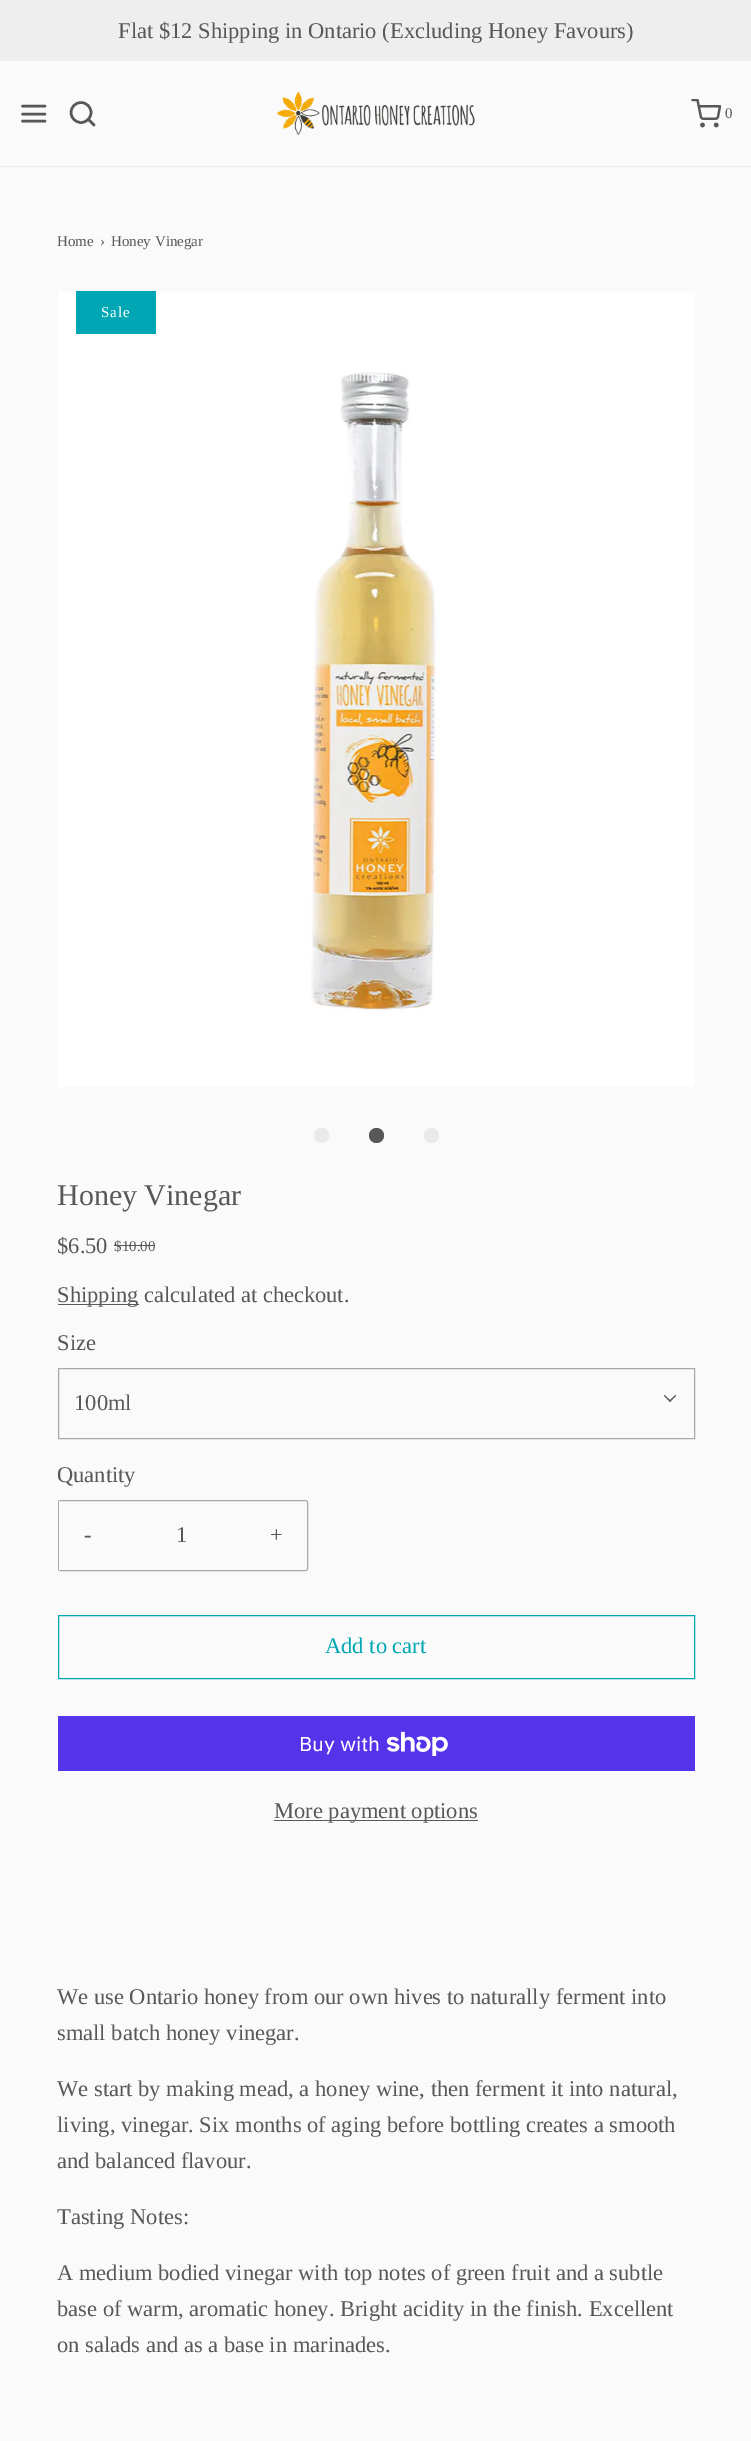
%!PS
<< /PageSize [751 2441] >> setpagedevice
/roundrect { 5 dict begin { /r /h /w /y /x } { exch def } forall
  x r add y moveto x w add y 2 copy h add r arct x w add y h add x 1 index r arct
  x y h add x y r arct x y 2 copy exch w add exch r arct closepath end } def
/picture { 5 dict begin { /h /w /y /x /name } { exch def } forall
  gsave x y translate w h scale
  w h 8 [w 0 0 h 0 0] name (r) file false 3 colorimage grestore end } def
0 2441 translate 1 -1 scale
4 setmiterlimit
0.98 setgray
0 0 751 2441 rectfill
0.933 setgray
0 0 751 61 rectfill
/LiberationSerif-Regular [22.5 0 0 -22.5 0 0] selectfont
0.345 setgray
118 38 moveto (Flat $12 Shipping in Ontario \(Excluding Honey Favours\)) show
0.918 setgray
0 166 751 1 rectfill
0.345 setgray
2.5 setlinewidth
1 setlinecap
1 setlinejoin
newpath 22.5 114 moveto 45 114 lineto 22.5 106 moveto 45 106 lineto 22.5 121 moveto 45 121 lineto stroke
0 setlinecap
0 setlinejoin
newpath 81 112.5 10 0 360 arc closepath stroke
1 setlinecap
1 setlinejoin
newpath 94 125 moveto 88.5 119.5 lineto stroke
(img1.rgb) 277 91 198 44 picture
(img2.rgb) 691 99 30 29 picture
/LiberationSerif-Regular [15 0 0 -15 0 0] selectfont
725 118 moveto (0) show
57 246 moveto (Home) show
100 246 moveto (›) show
111 246 moveto (Honey Vinegar) show
(img3.rgb) 58 292 637 795 picture
0 0.651 0.702 setrgbcolor
76 291 80 43 rectfill
1 setgray
101 317 moveto 1 0 (Sale) ashow
0.918 setgray
newpath 321.5 1135.5 7.5 0 360 arc closepath fill
0.345 setgray
newpath 376.5 1135.5 7.5 0 360 arc closepath fill
0.918 setgray
newpath 431.5 1135.5 7.5 0 360 arc closepath fill
/LiberationSerif-Regular [30 0 0 -30 0 0] selectfont
0.345 setgray
57 1205 moveto (Honey Vinegar) show
/LiberationSerif-Regular [22.5 0 0 -22.5 0 0] selectfont
57 1253 moveto ($6.50) show
/LiberationSerif-Regular [15 0 0 -15 0 0] selectfont
114 1251 moveto ($10.00) show
114 1245 41 1 rectfill
58 1304 81 1 rectfill
/LiberationSerif-Regular [22.5 0 0 -22.5 0 0] selectfont
57 1302 moveto (Shipping calculated at checkout.) show
57 1350 moveto (Size) show
0.663 setgray
1 setlinewidth
0 setlinecap
0 setlinejoin
58.5 1368.5 636 70 rectstroke
0.345 setgray
74 1410 moveto (100ml) show
newpath 675.5 1395 moveto 676 1396 lineto 670 1402 lineto 669 1401 lineto closepath fill
newpath 664.5 1395 moveto 671 1401 lineto 670 1402 lineto 664 1396 lineto closepath fill
57 1482 moveto (Quantity) show
0.663 setgray
58.5 1500.5 249 70 2 roundrect stroke
0.98 setgray
59 1501 1 69 rectfill
0.345 setgray
84 1542 moveto (-) show
176 1542 moveto (1) show
270 1542 moveto (+) show
0 0.651 0.702 setrgbcolor
58.5 1615.5 636 63 rectstroke
325 1653 moveto (Add to cart) show
0.329 0.2 0.922 setrgbcolor
58 1716 637 55 rectfill
/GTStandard-Regular [20 0 0 -20 0 0] selectfont
1 setgray
299 1751 moveto (Buy with) show
(img4.rgb) 386 1731 62 25 picture
0.345 setgray
274 1820 204 1 rectfill
/LiberationSerif-Regular [22.5 0 0 -22.5 0 0] selectfont
274 1818 moveto (More payment options) show
57 2004 moveto (We use Ontario honey from our own hives to naturally ferment into) show
57 2040 moveto (small batch honey vinegar.) show
57 2096 moveto (We start by making mead, a honey wine, then ferment it into natural,) show
57 2132 moveto (living, vinegar. Six months of aging before bottling creates a smooth) show
57 2168 moveto (and balanced flavour.) show
57 2224 moveto (Tasting Notes:) show
57 2280 moveto (A medium bodied vinegar with top notes of green fruit and a subtle) show
57 2316 moveto (base of warm, aromatic honey. Bright acidity in the finish. Excellent) show
57 2352 moveto (on salads and as a base in marinades.) show
showpage
